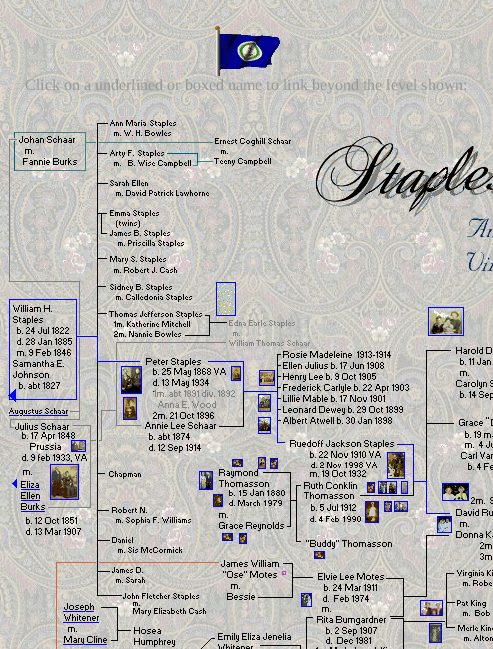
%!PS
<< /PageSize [493 649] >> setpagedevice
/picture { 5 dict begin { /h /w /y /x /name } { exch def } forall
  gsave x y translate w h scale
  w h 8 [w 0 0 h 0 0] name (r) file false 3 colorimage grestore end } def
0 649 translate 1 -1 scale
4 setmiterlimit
1 setgray
0 0 493 649 rectfill
(img1.rgb) 0 0 493 649 picture
(img2.rgb) 215 26 65 50 picture
/LiberationSerif-Regular [16 0 0 -16 0 0] selectfont
0.6 setgray
25 90 moveto (Click on a underlined or boxed name to link beyond the level shown:) show
(img3.rgb) 8 120 485 529 picture
showpage
